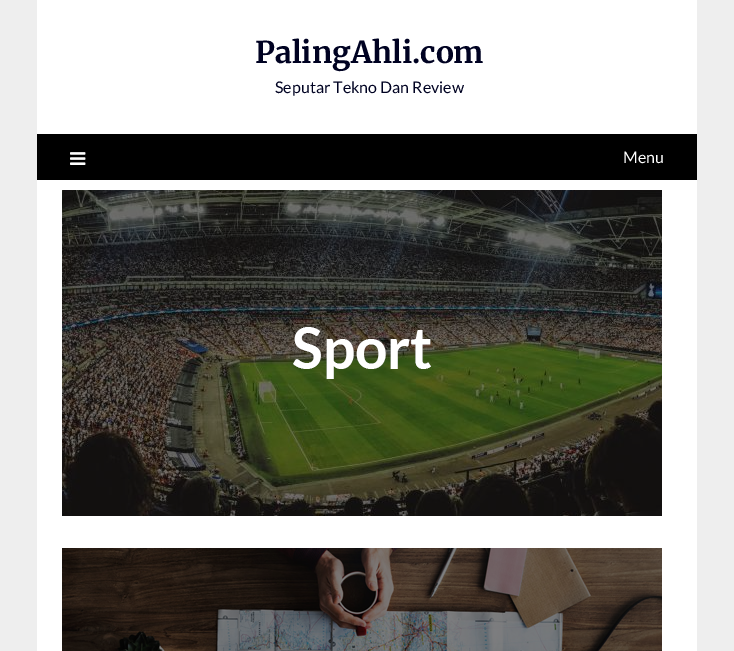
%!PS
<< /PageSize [734 651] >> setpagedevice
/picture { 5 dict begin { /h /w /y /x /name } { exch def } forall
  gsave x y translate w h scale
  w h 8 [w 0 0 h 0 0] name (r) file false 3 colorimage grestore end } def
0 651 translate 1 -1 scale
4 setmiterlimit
0.933 setgray
0 0 734 651 rectfill
1 setgray
37 0 660 134 rectfill
/Merriweather-Bold [30 0 0 -30 0 0] selectfont
0 0.008 0.133 setrgbcolor
255 63 moveto (PalingAhli.com) show
/Lato-Regular [16 0 0 -16 0 0] selectfont
275 93 moveto (Seputar Tekno Dan Review) show
0 setgray
37 134 660 46 rectfill
(img1.rgb) 70 152 16 13 picture
1 setgray
623 163 moveto (Menu) show
37 180 660 471 rectfill
(img2.rgb) 62 190 600 326 picture
(img3.rgb) 62 548 600 103 picture
showpage
